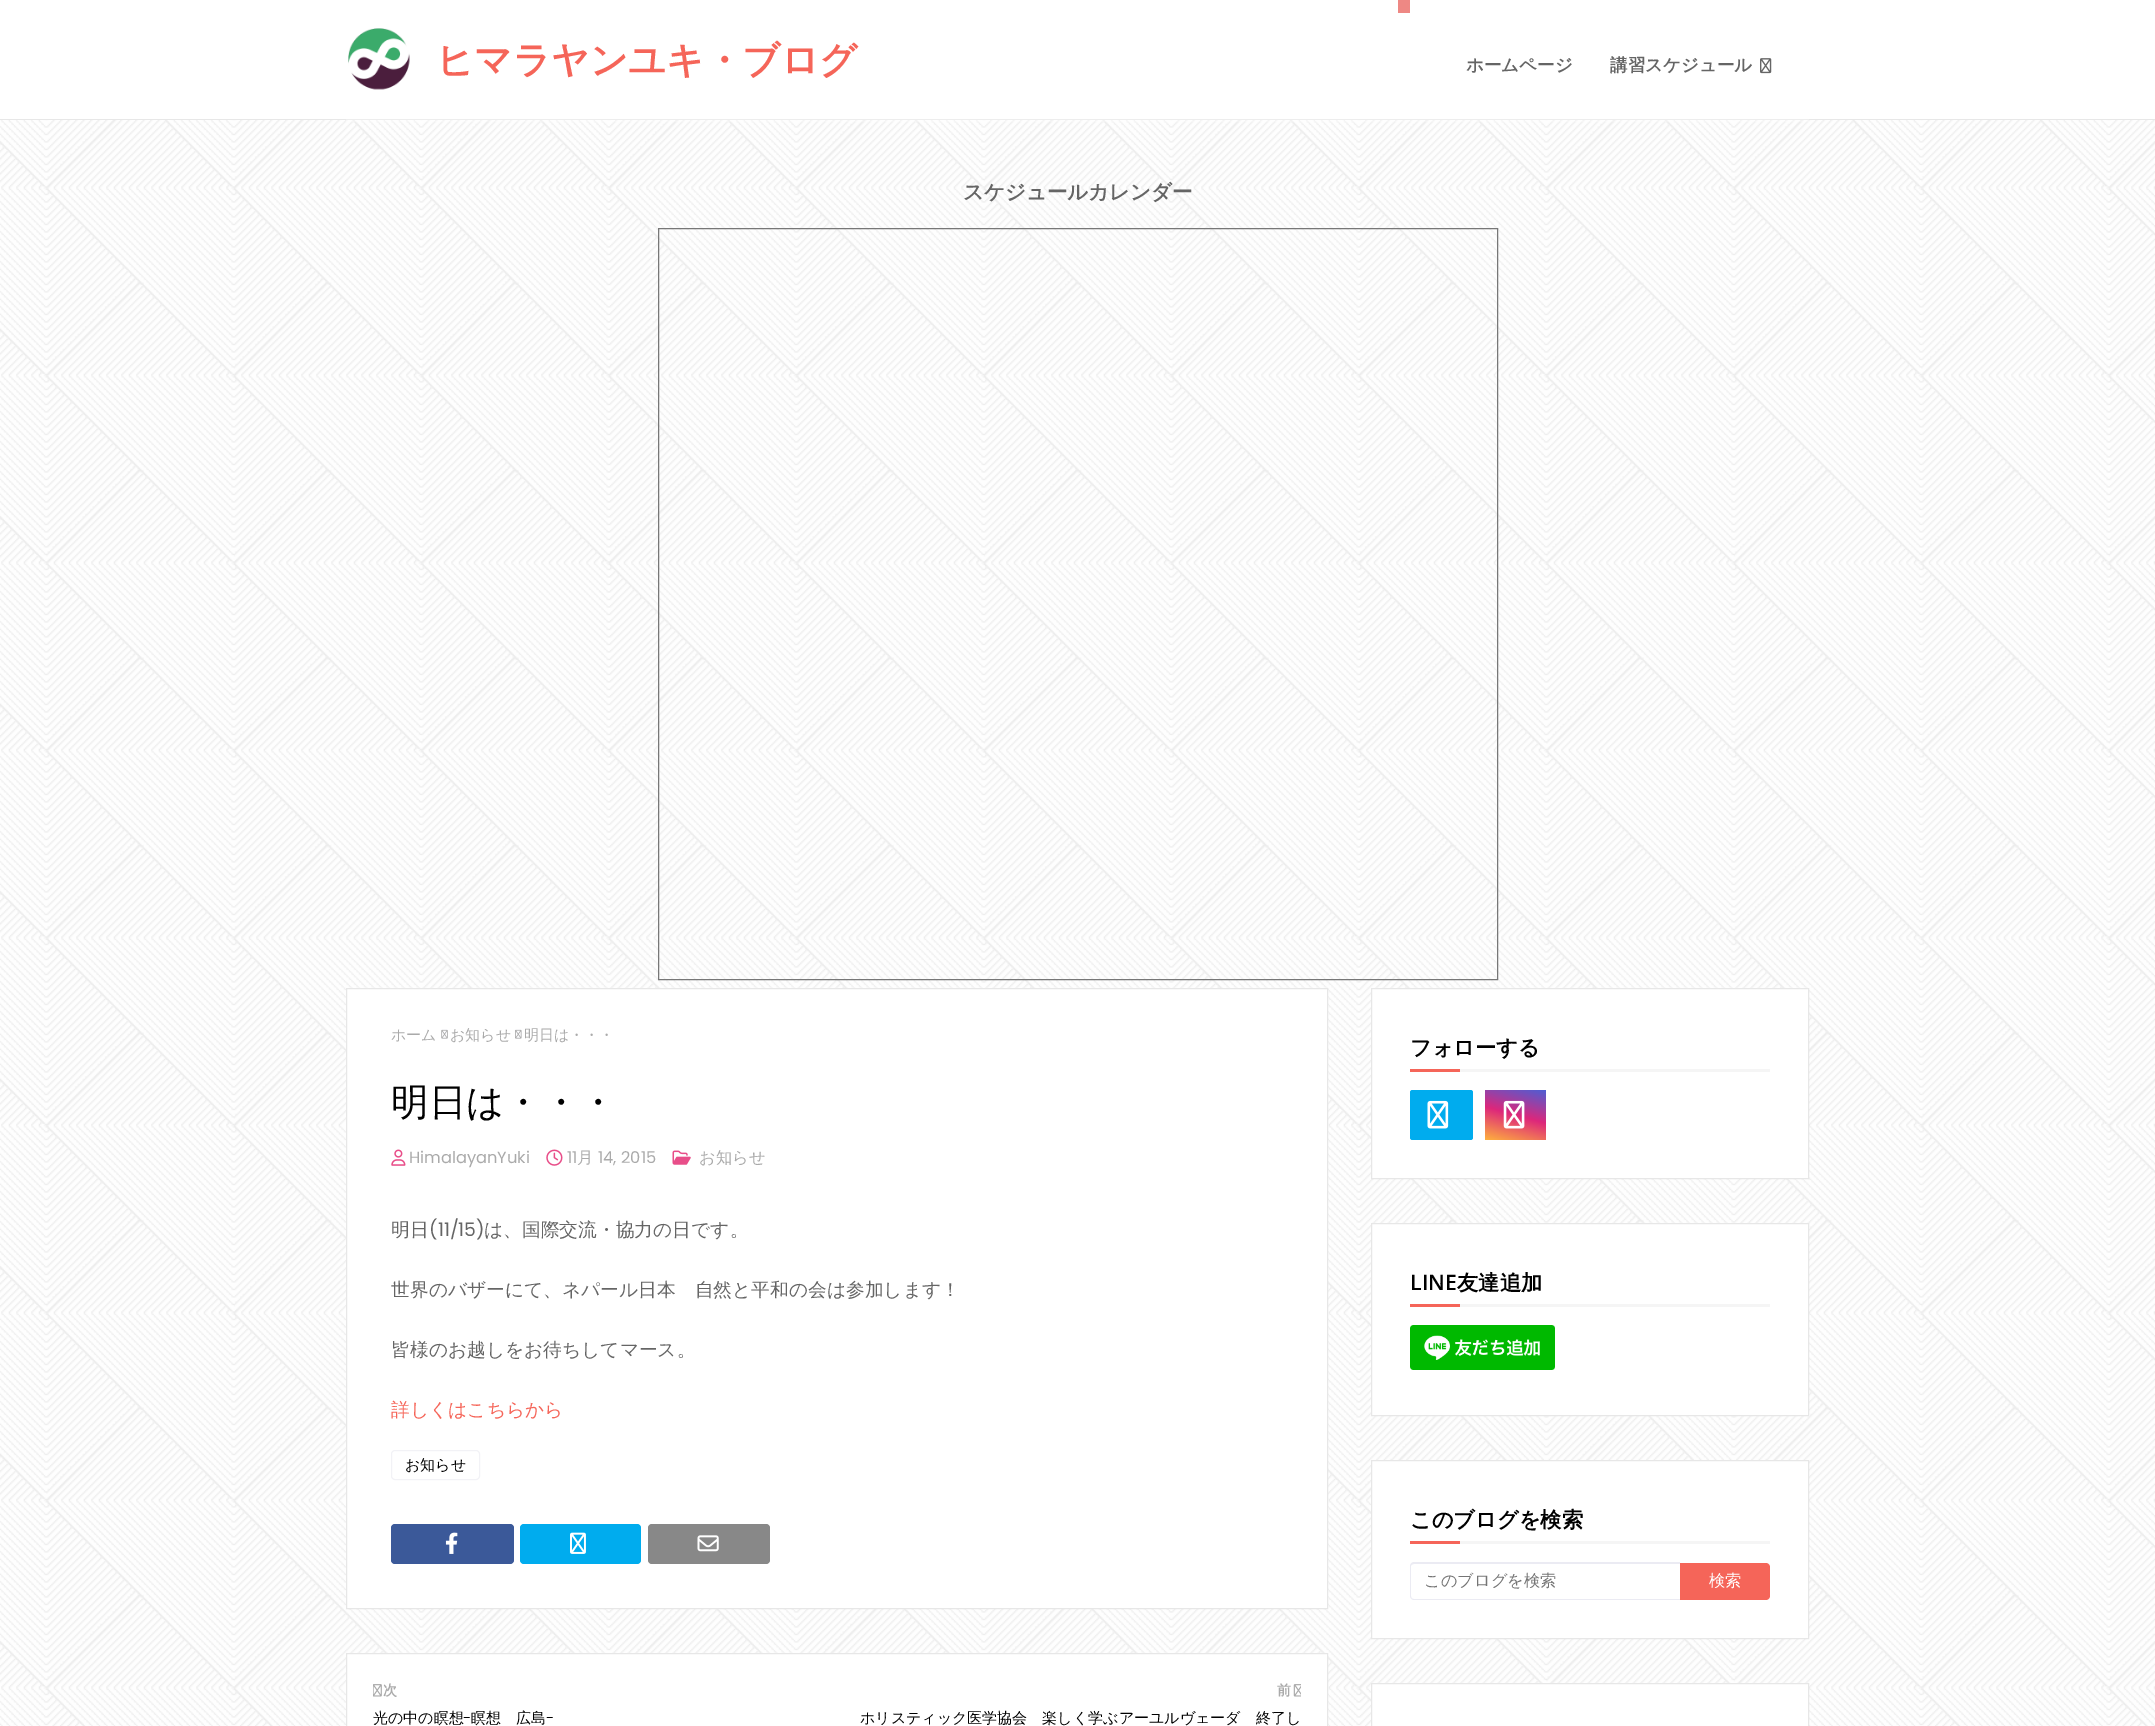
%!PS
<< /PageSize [2155 1726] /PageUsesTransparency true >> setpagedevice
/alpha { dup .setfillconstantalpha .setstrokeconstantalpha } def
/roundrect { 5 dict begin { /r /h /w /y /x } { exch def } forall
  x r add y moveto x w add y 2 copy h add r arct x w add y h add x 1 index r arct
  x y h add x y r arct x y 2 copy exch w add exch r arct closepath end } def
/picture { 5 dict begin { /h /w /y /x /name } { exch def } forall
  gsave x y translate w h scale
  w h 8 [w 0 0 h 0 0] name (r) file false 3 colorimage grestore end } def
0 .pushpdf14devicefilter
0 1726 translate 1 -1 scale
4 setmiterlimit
1 setgray
0 0 2155 1726 rectfill
(img1.rgb) 0 120 2155 1606 picture
0.906 setgray
0 119 2155 1 rectfill
0.25 alpha
1 setgray
346 119 1463 3 rectfill
1 alpha
(img2.rgb) 348 28 62 62 picture
/WenQuanYiZenHei-Bold [37.5 0 0 -37.5 0 0] selectfont
0.961 0.396 0.349 setrgbcolor
436 73 moveto (ヒマラヤンユキ・ブログ) show
0.933 0.533 0.518 setrgbcolor
1398 0 12 13 rectfill
/WenQuanYiZenHei-Bold [17.5 0 0 -17.5 0 0] selectfont
0.396 setgray
1466 71 moveto (ホームページ) show
1610 71 moveto (講習スケジュール) show
(img3.rgb) 1760 58 12 16 picture
/WenQuanYiZenHei-Bold [20.5 0 0 -20.5 0 0] selectfont
963 199 moveto (スケジュールカレンダー) show
0.467 setgray
658.5 228.5 839 751 rectstroke
1 setgray
newpath 346.5 988.5 moveto 1327.5 988.5 lineto 1327.5 1608.5 lineto 346.5 1608.5 lineto closepath gsave fill grestore
0.906 setgray
stroke
/WenQuanYiZenHei-Medium [15 0 0 -15 0 0] selectfont
0.667 setgray
391 1040 moveto (ホーム) show
(img4.rgb) 441 1029 7 10 picture
450 1040 moveto (お知らせ) show
(img5.rgb) 515 1029 7 10 picture
524 1040 moveto (明日は・・・) show
/WenQuanYiZenHei-Medium [37.5 0 0 -37.5 0 0] selectfont
0 setgray
391 1115 moveto (明日は・・・) show
(img6.rgb) 391 1149 15 17 picture
/Poppins-Regular [16.25 0 0 -16.25 0 0] selectfont
0.667 setgray
409 1163 moveto (HimalayanYuki) show
(img7.rgb) 546 1149 17 17 picture
567 1163 moveto (11) show
/WenQuanYiZenHei-Medium [16.25 0 0 -16.25 0 0] selectfont
577 1163 moveto (月) show
/Poppins-Regular [16.25 0 0 -16.25 0 0] selectfont
598 1163 moveto (14, 2015) show
(img8.rgb) 672 1150 19 15 picture
/WenQuanYiZenHei-Medium [16.25 0 0 -16.25 0 0] selectfont
699 1163 moveto (お知らせ) show
/WenQuanYiZenHei-Medium [18.75 0 0 -18.75 0 0] selectfont
0.396 setgray
391 1236 moveto (明日) show
/Poppins-Regular [18.75 0 0 -18.75 0 0] selectfont
429 1236 moveto (\(11/15\)) show
/WenQuanYiZenHei-Medium [18.75 0 0 -18.75 0 0] selectfont
484 1236 moveto (は、国際交流・協力の日です。) show
391 1296 moveto (世界のバザーにて、ネパール日本　自然と平和の会は参加します！) show
391 1356 moveto (皆様のお越しをお待ちしてマース。) show
0.961 0.396 0.349 setrgbcolor
391 1416 moveto (詳しくはこちらから) show
0.949 0.949 0.965 setrgbcolor
391.5 1450.5 88 29 3.5 roundrect stroke
/WenQuanYiZenHei-Medium [15 0 0 -15 0 0] selectfont
0 setgray
405 1470 moveto (お知らせ) show
0.231 0.349 0.6 setrgbcolor
391 1524 123 40 4 roundrect fill
(img9.rgb) 445 1532 13 22 picture
0 0.675 0.933 setrgbcolor
520 1524 121 40 4 roundrect fill
(img10.rgb) 570 1532 16 22 picture
0.533 setgray
648 1524 122 40 4 roundrect fill
(img11.rgb) 697 1535 22 17 picture
1 setgray
newpath 346.5 1653.5 moveto 1327.5 1653.5 lineto 1327.5 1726.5 lineto 346.5 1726.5 lineto closepath gsave fill grestore
0.906 setgray
stroke
(img12.rgb) 373 1684 9 13 picture
/WenQuanYiZenHei-Bold [14 0 0 -14 0 0] selectfont
0.667 setgray
383 1695 moveto (次) show
/WenQuanYiZenHei-Medium [15 0 0 -15 0 0] selectfont
0 setgray
373 1723 moveto (光の中の瞑想) show
/Poppins-Regular [15 0 0 -15 0 0] selectfont
463 1723 moveto (-) show
/WenQuanYiZenHei-Medium [15 0 0 -15 0 0] selectfont
471 1723 moveto (瞑想　広島) show
/Poppins-Regular [15 0 0 -15 0 0] selectfont
546 1723 moveto (-) show
/WenQuanYiZenHei-Bold [14 0 0 -14 0 0] selectfont
0.667 setgray
1277 1695 moveto (前) show
(img13.rgb) 1293 1684 8 13 picture
/WenQuanYiZenHei-Medium [15 0 0 -15 0 0] selectfont
0 setgray
860 1723 moveto (ホリスティック医学協会　楽しく学ぶアーユルヴェーダ　終了し) show
1 setgray
newpath 1371.5 988.5 moveto 1808.5 988.5 lineto 1808.5 1178.5 lineto 1371.5 1178.5 lineto closepath gsave fill grestore
0.906 setgray
stroke
0.961 setgray
1460 1069 310 3 rectfill
/WenQuanYiZenHei-Bold [21.25 0 0 -21.25 0 0] selectfont
0 setgray
1410 1055 moveto (フォローする) show
0.961 0.396 0.349 setrgbcolor
1410 1069 50 3 rectfill
0 0.675 0.933 setrgbcolor
1410 1090 63 50 2.5 roundrect fill
(img14.rgb) 1427 1100 22 29 picture
gsave 1485 1090 61 50 2.5 roundrect clip newpath
<< /ShadingType 2 /ColorSpace /DeviceRGB /Coords [1507 1146 1524 1084] /Extend [true true] /Function << /FunctionType 3 /Domain [0 1] /Functions [<< /FunctionType 2 /Domain [0 1] /C0 [1 0.694 0.239] /C1 [0.867 0.153 0.482] /N 1 >> << /FunctionType 2 /Domain [0 1] /C0 [0.867 0.153 0.482] /C1 [0.302 0.369 0.831] /N 1 >>] /Bounds [0.5] /Encode [0 1 0 1] >> >> shfill grestore
(img15.rgb) 1503 1100 22 29 picture
1 setgray
newpath 1371.5 1223.5 moveto 1808.5 1223.5 lineto 1808.5 1415.5 lineto 1371.5 1415.5 lineto closepath gsave fill grestore
0.906 setgray
stroke
0.961 setgray
1460 1304 310 3 rectfill
/OpenSans-SemiBold [21.25 0 0 -21.25 0 0] selectfont
0 setgray
1410 1290 moveto (LINE) show
/WenQuanYiZenHei-Bold [21.25 0 0 -21.25 0 0] selectfont
1457 1290 moveto (友達追加) show
0.961 0.396 0.349 setrgbcolor
1410 1304 50 3 rectfill
(img16.rgb) 1410 1325 145 45 picture
1 setgray
newpath 1371.5 1460.5 moveto 1808.5 1460.5 lineto 1808.5 1638.5 lineto 1371.5 1638.5 lineto closepath gsave fill grestore
0.906 setgray
stroke
0.961 setgray
1460 1541 310 3 rectfill
0 setgray
1410 1527 moveto (このブログを検索) show
0.961 0.396 0.349 setrgbcolor
1410 1541 50 3 rectfill
0.922 0.922 0.953 setrgbcolor
newpath 1414 1562 moveto 1680 1562 lineto 1680 1600 lineto 1414 1600 lineto 1412 1600 1410 1598 1410 1596 curveto 1410 1566 lineto 1410 1564 1412 1562 1414 1562 curveto closepath 1414 1564 moveto 1680 1564 lineto 1680 1599 lineto 1414 1599 lineto 1412 1599 1411 1598 1411 1596 curveto 1411 1566 lineto 1411 1565 1412 1564 1414 1564 curveto closepath eofill
/WenQuanYiZenHei-Medium [16.25 0 0 -16.25 0 0] selectfont
0.459 setgray
1424 1586 moveto (このブログを検索) show
0.961 0.396 0.349 setrgbcolor
newpath 1680 1563 moveto 1766 1563 lineto 1768 1563 1770 1565 1770 1567 curveto 1770 1596 lineto 1770 1598 1768 1600 1766 1600 curveto 1680 1600 lineto closepath fill
1 setgray
1709 1586 moveto (検索) show
newpath 1371.5 1683.5 moveto 1808.5 1683.5 lineto 1808.5 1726.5 lineto 1371.5 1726.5 lineto closepath gsave fill grestore
0.906 setgray
stroke
.poppdf14devicefilter showpage
